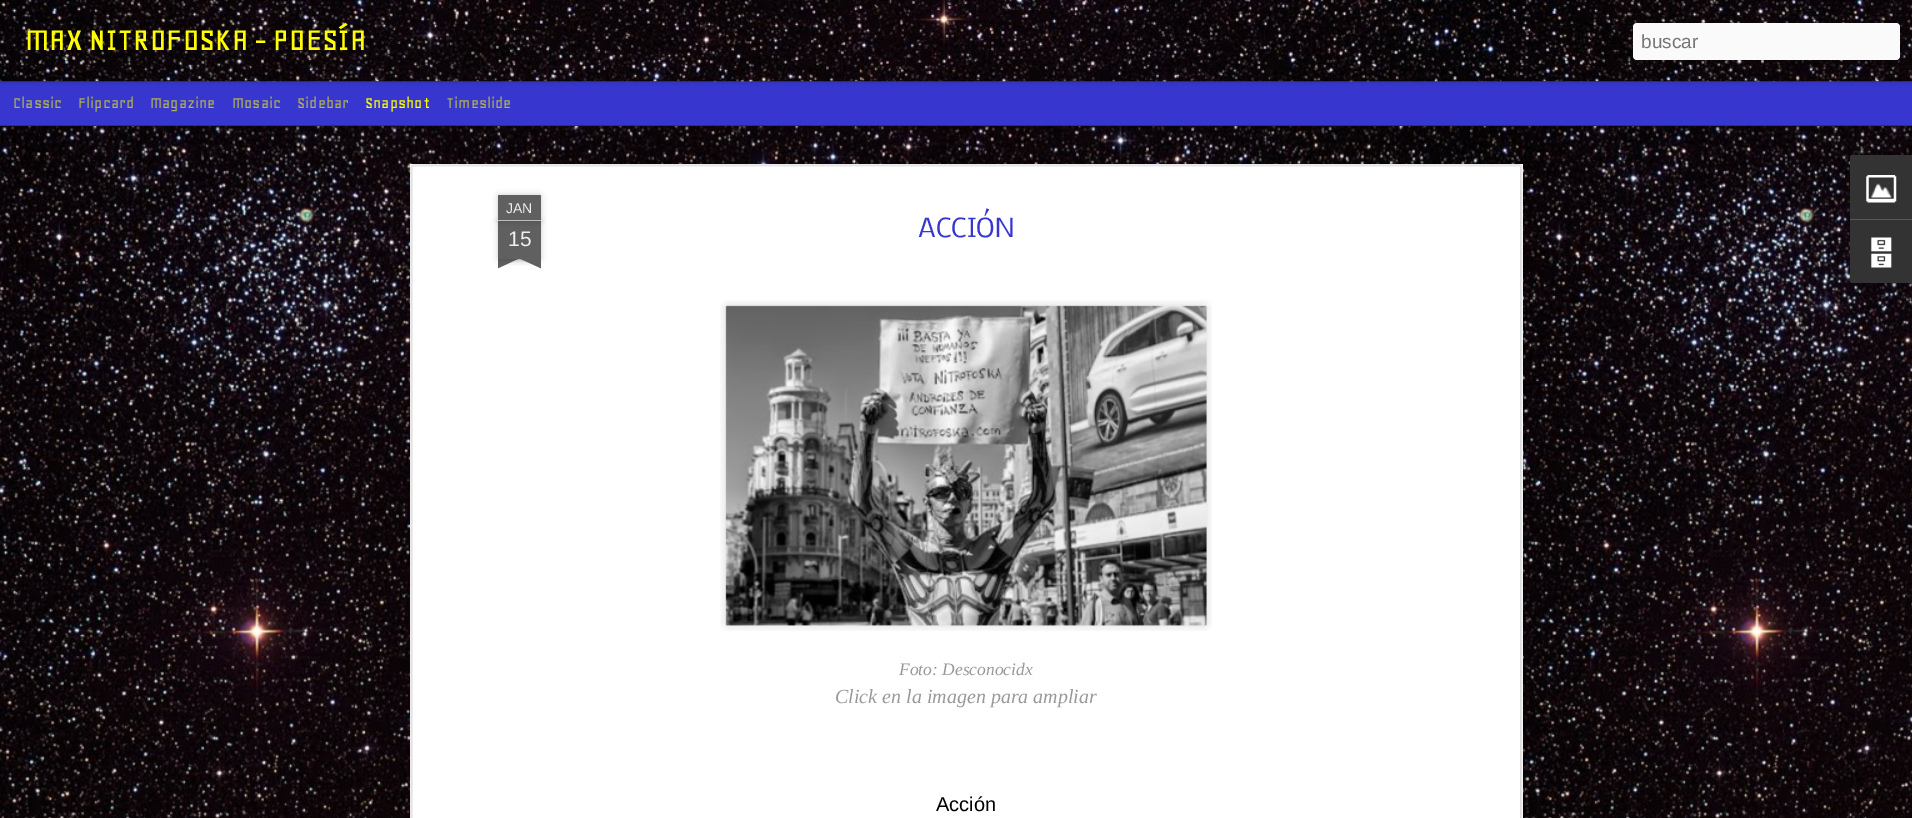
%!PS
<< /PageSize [1912 818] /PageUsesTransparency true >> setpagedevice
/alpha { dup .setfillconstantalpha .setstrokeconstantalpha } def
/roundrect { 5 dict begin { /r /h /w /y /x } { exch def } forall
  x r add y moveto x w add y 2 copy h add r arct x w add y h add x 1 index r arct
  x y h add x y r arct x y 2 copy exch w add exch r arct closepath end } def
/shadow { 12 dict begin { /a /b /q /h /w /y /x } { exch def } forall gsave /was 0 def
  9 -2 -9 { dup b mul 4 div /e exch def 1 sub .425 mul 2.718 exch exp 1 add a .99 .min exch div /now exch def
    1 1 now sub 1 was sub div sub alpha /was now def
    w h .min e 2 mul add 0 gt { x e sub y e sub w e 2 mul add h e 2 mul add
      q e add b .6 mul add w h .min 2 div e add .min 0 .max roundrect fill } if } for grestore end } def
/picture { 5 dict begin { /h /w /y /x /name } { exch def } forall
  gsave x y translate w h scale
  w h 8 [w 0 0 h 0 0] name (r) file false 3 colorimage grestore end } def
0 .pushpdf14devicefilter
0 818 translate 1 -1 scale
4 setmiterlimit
0.216 0.216 0.816 setrgbcolor
0 0 1912 818 rectfill
(img2.rgb) 0 126 1912 692 picture
0 setgray
0 81 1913 44 0 5 0.5 shadow
0.216 0.216 0.816 setrgbcolor
0 81 1912 44 rectfill
0 setgray
0 0 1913 81 0 3 0.3 shadow
(img1.rgb) 0 0 1912 82 picture
/Geo-Regular [35 0 0 -35 0 0] selectfont
1 1 0 setrgbcolor
25 50 moveto (MAX NITROFOSKA - POESÍA) show
0.98 setgray
1633 23 267 37 4 roundrect fill
/LiberationSans-Regular [19 0 0 -19 0 0] selectfont
0.459 setgray
1641 48 moveto (buscar) show
/Geo-Regular [17.5 0 0 -17.5 0 0] selectfont
0.686 0.686 0.325 setrgbcolor
13 108 moveto (Classic) show
78 108 moveto (Flipcard) show
150 108 moveto (Magazine) show
232 108 moveto (Mosaic) show
297 108 moveto (Sidebar) show
1 1 0 setrgbcolor
365 108 moveto (Snapshot) show
0.686 0.686 0.325 setrgbcolor
446 108 moveto (Timeslide) show
1 setgray
410 164 1113 654 rectfill
(img3.rgb) 410 164 1113 654 picture
0 setgray
498 221 43 38 0 3 0.2 shadow
0.376 setgray
498 221 43 38 rectfill
0 setgray
498 195 43 26 1 3 0.2 shadow
0.376 setgray
newpath 499 195 moveto 540 195 lineto 540.5 195 541 195.5 541 196 curveto 541 221 lineto 498 221 lineto 498 196 lineto 498 195.5 498.5 195 499 195 curveto closepath fill
0.749 setgray
498 220 43 1 rectfill
/LiberationSans-Regular [14 0 0 -14 0 0] selectfont
0.933 setgray
506 213 moveto (JAN) show
/LiberationSans-Regular [21 0 0 -21 0 0] selectfont
508 246 moveto (15) show
gsave
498 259 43 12 rectclip
0 setgray
486 246 63 13 0 3 0.2 shadow
grestore
gsave
498 259 43 12 rectclip
0.376 setgray
newpath 487 260 moveto 543 234 lineto 548 245 lineto 492 271 lineto closepath fill
grestore
gsave
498 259 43 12 rectclip
0 setgray
490 246 63 13 0 3 0.2 shadow
grestore
gsave
498 259 43 12 rectclip
0.376 setgray
newpath 496 234 moveto 552 260 lineto 547 271 lineto 490 245 lineto closepath fill
grestore
/Nobile-Regular [25 0 0 -25 0 0] selectfont
0.216 0.216 0.816 setrgbcolor
918 237 moveto (ACCIÓN) show
(img4.rgb) 720 300 492 331 picture
(img5.rgb) 725 305 482 321 picture
/LiberationSerif-Italic [17.5 0 0 -17.5 0 0] selectfont
0.6 setgray
899 675 moveto (Foto: Desconocidx) show
/LiberationSerif-Italic [20 0 0 -20 0 0] selectfont
835 703 moveto (Click en la imagen para ampliar) show
/LiberationSans-Regular [20 0 0 -20 0 0] selectfont
0 setgray
936 811 moveto (Acción) show
1850 156 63 128 2.5 2 0.3 shadow
0.2 setgray
newpath 1852.5 155 moveto 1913 155 lineto 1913 219 lineto 1850 219 lineto 1850 157.5 lineto 1850 156 1851 155 1852.5 155 curveto closepath fill
(img6.rgb) 1866 175 31 28 picture
newpath 1850 219 moveto 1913 219 lineto 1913 283 lineto 1852.5 283 lineto 1851 283 1850 282 1850 280.5 curveto closepath fill
0.345 setgray
1850 219 62 1 rectfill
(img7.rgb) 1871 237 21 31 picture
.poppdf14devicefilter showpage
